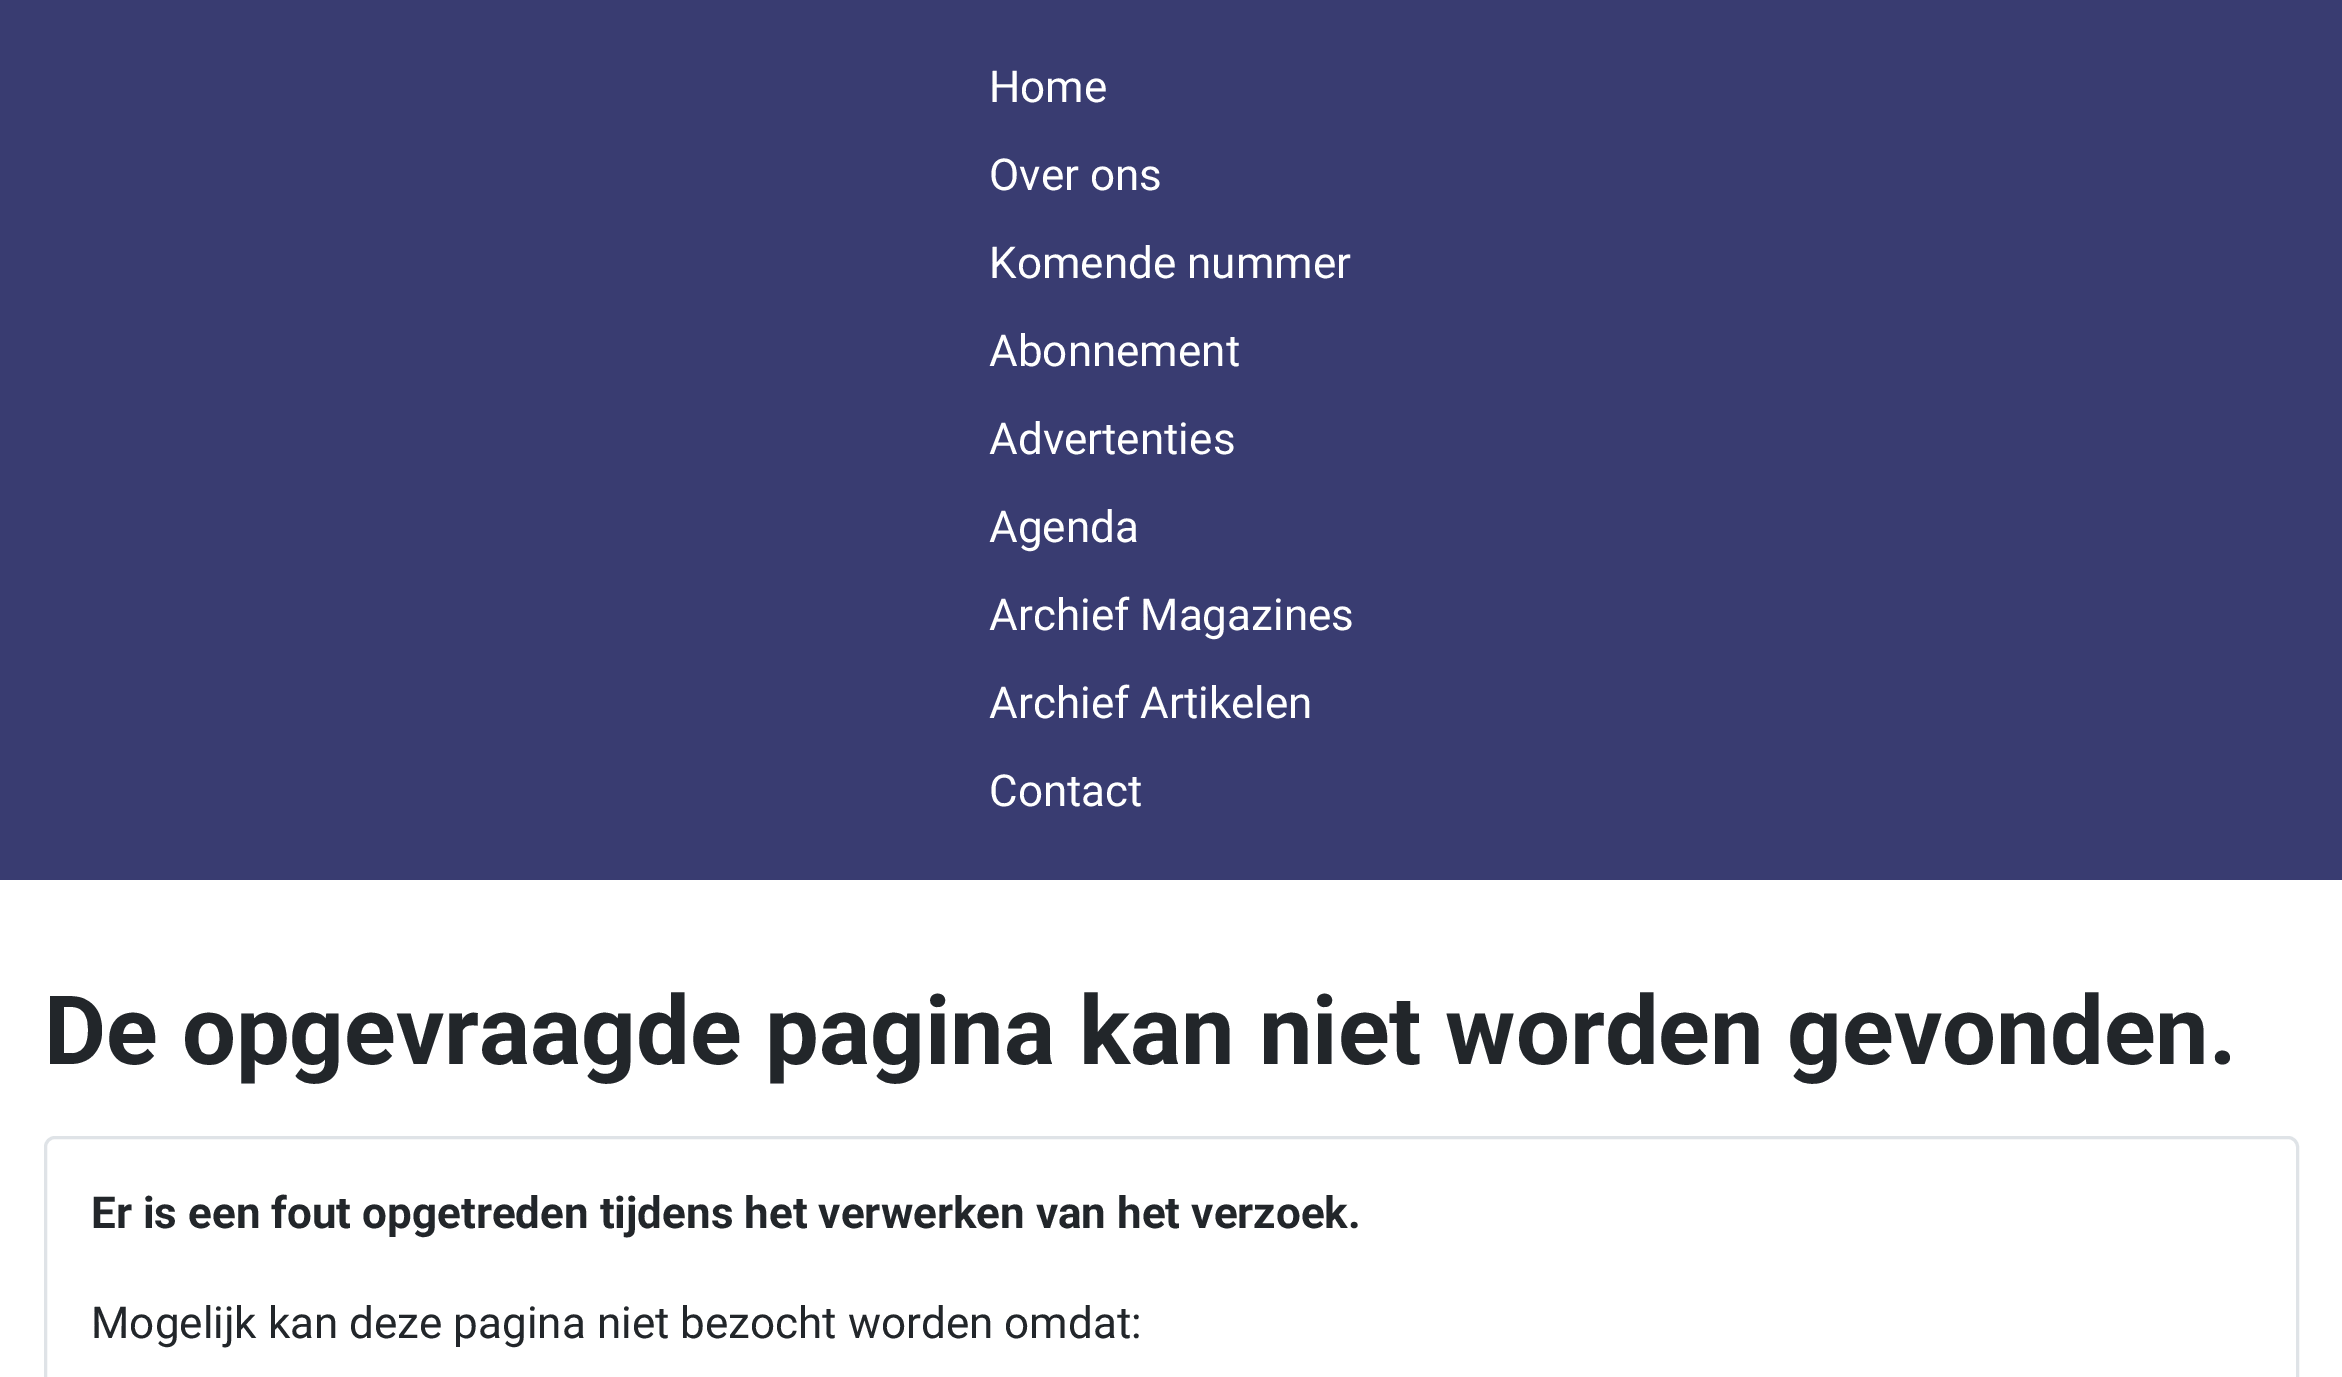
%!PS
<< /PageSize [2342 1377] >> setpagedevice
/roundrect { 5 dict begin { /r /h /w /y /x } { exch def } forall
  x r add y moveto x w add y 2 copy h add r arct x w add y h add x 1 index r arct
  x y h add x y r arct x y 2 copy exch w add exch r arct closepath end } def
0 1377 translate 1 -1 scale
4 setmiterlimit
1 setgray
0 0 2342 1377 rectfill
0.224 0.235 0.443 setrgbcolor
0 0 2342 880 rectfill
/Roboto-Regular [44 0 0 -44 0 0] selectfont
1 setgray
989 102 moveto (Home) show
989 190 moveto (Over ons) show
989 278 moveto (Komende nummer) show
989 366 moveto (Abonnement) show
989 454 moveto (Advertenties) show
989 542 moveto (Agenda) show
989 630 moveto (Archief Magazines) show
989 718 moveto (Archief Artikelen) show
989 806 moveto (Contact) show
/Roboto-Bold [95.65 0 0 -95.65 0 0] selectfont
0.133 0.149 0.165 setrgbcolor
44 1064 moveto (De opgevraagde pagina kan niet worden gevonden.) show
0.875 0.89 0.906 setrgbcolor
3 setlinewidth
45.5 1137.5 2252 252 9.5 roundrect stroke
/Roboto-Bold [44 0 0 -44 0 0] selectfont
0.133 0.149 0.165 setrgbcolor
91 1228 moveto (Er is een fout opgetreden tijdens het verwerken van het verzoek.) show
/Roboto-Regular [44 0 0 -44 0 0] selectfont
91 1338 moveto (Mogelijk kan deze pagina niet bezocht worden omdat:) show
showpage
